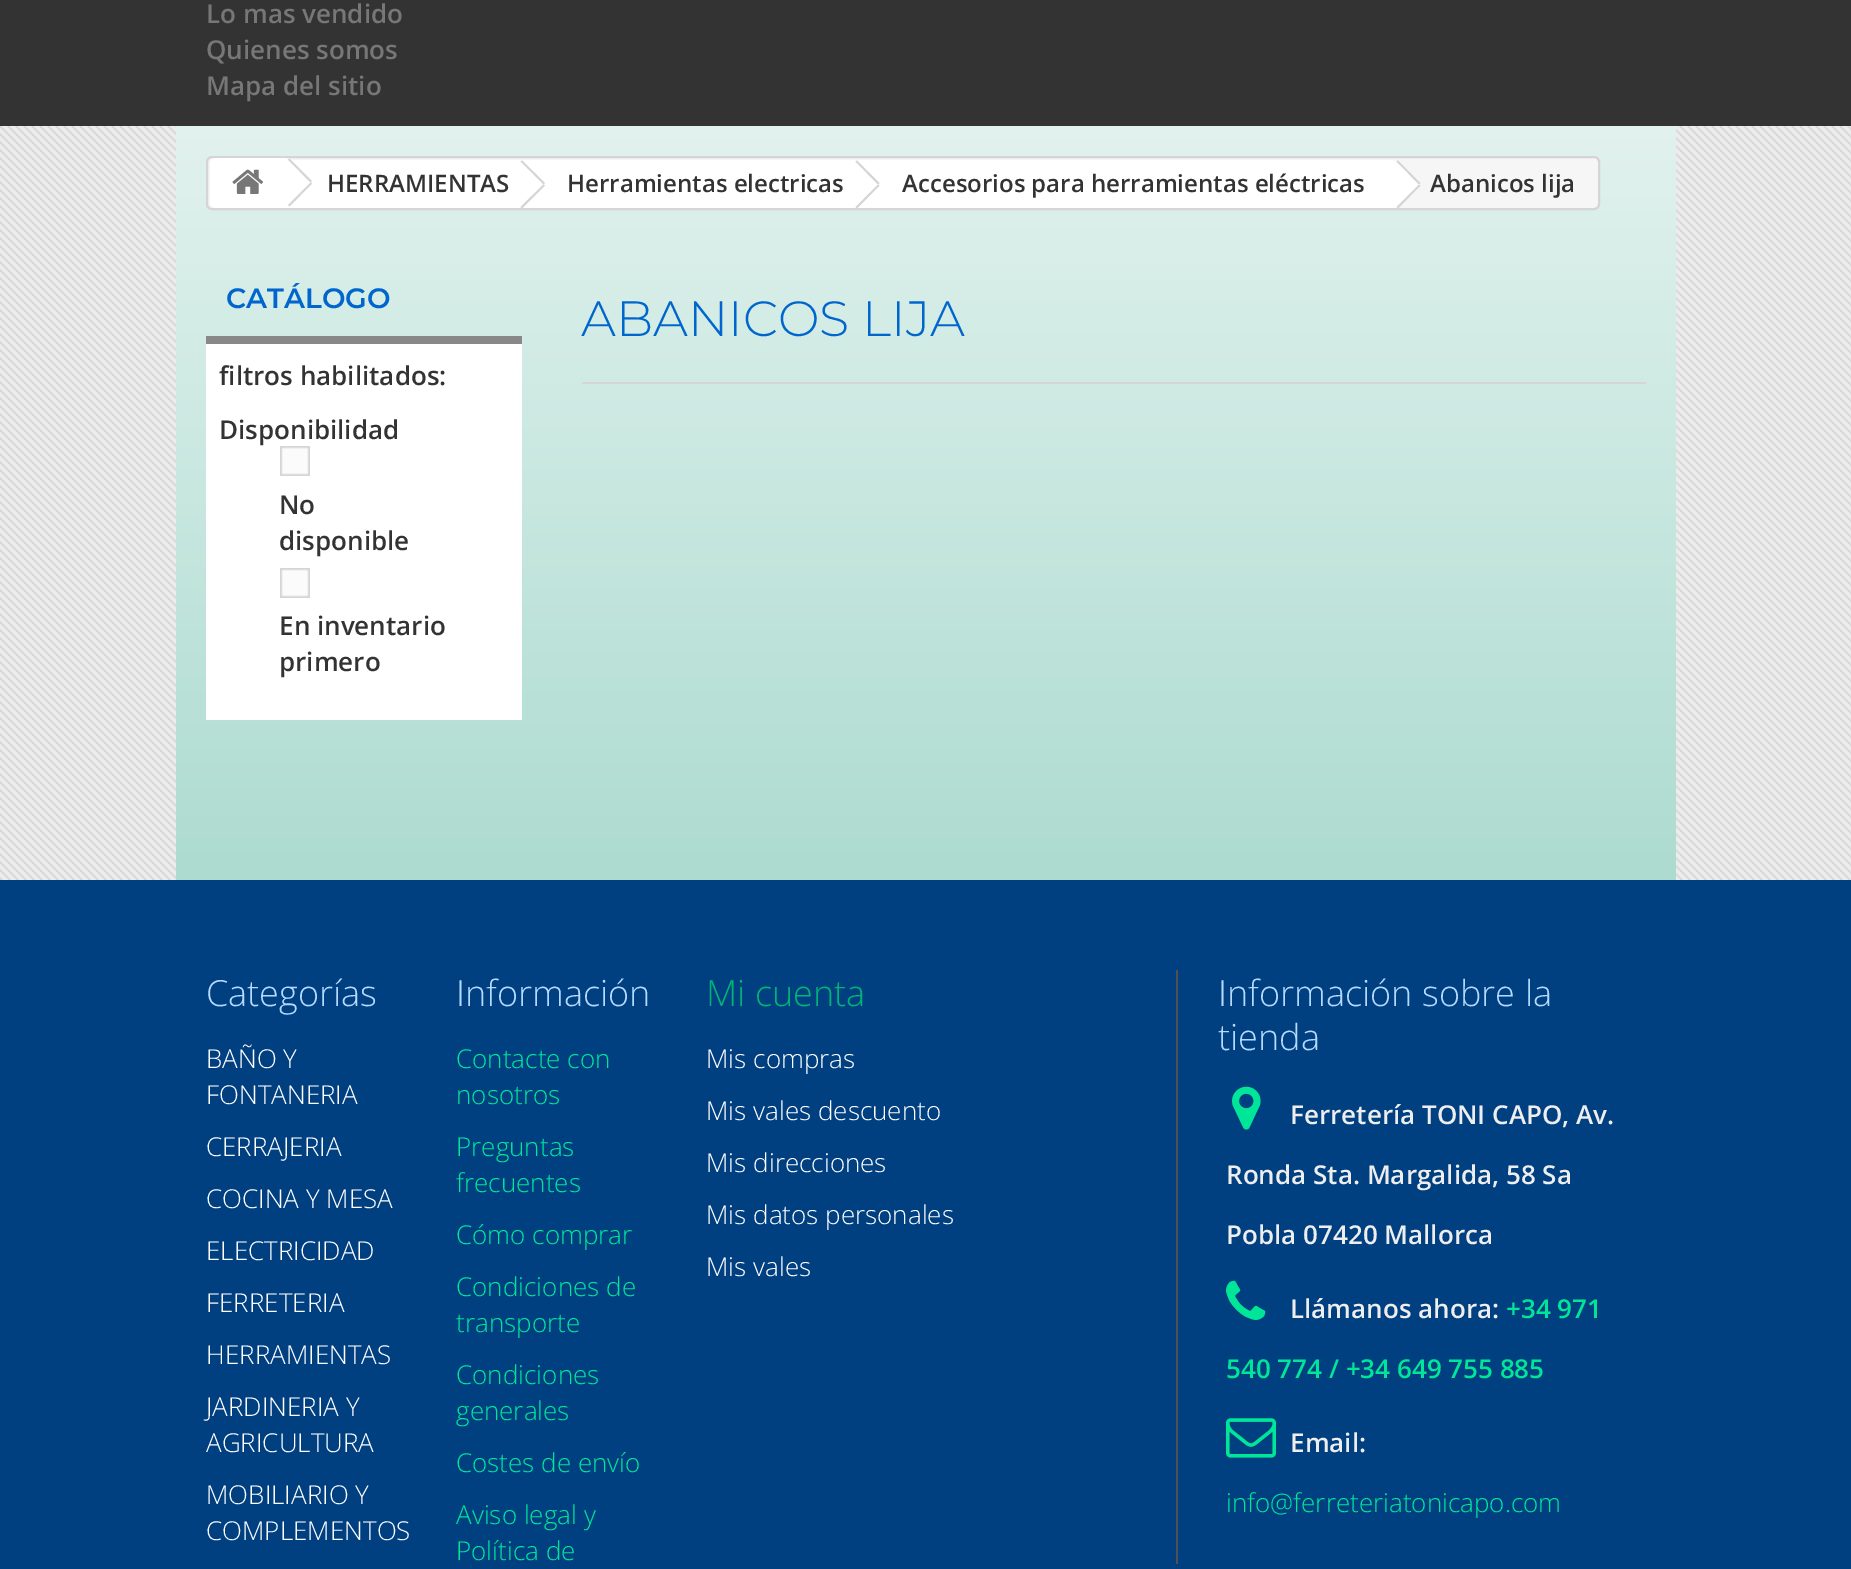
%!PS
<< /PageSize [1851 1569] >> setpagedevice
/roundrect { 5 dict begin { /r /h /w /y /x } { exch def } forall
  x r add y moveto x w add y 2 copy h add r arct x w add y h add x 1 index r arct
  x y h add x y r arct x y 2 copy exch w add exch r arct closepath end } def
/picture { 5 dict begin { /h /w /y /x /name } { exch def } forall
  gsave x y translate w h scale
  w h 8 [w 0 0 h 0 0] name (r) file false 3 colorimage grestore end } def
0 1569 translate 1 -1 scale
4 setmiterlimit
0.933 setgray
0 0 1851 1569 rectfill
0.2 setgray
0 0 1851 126 rectfill
/OpenSans-SemiBold [26 0 0 -26 0 0] selectfont
0.467 setgray
206 23 moveto (Lo mas vendido) show
206 59 moveto (Quienes somos) show
206 95 moveto (Mapa del sitio) show
(img1.rgb) 0 126 1851 754 picture
gsave newpath 176 126 moveto 1676 126 lineto 1676 880 lineto 176 880 lineto closepath clip newpath
<< /ShadingType 2 /ColorSpace /DeviceRGB /Coords [926 126 926 880] /Extend [true true] /Function << /FunctionType 2 /Domain [0 1] /C0 [0.886 0.949 0.933] /C1 [0.678 0.859 0.816] /N 1 >> >> shfill grestore
0.965 setgray
207 157 1392 52 5 roundrect gsave fill grestore
0.839 0.831 0.831 setrgbcolor
2 setlinewidth
stroke
1 setgray
newpath 216 158 moveto 286 158 lineto 286 208 lineto 216 208 lineto 212.5 208 210 205.5 210 202 curveto 210 164 lineto 210 160.5 212.5 158 216 158 curveto closepath fill
(img2.rgb) 232 169 31 25 picture
286 160 236 48 rectfill
newpath 291 160 moveto 311 179 lineto 312 181 312 184 311 185 curveto 291 205 lineto 289 207 287 207 285 205 curveto 265 185 lineto 264 184 264 181 265 179 curveto 285 160 lineto 287 158 289 158 291 160 curveto closepath fill
0.839 0.831 0.831 setrgbcolor
newpath 289.5 158.5 moveto 312 181 lineto 310.5 182.5 lineto 288 159.5 lineto closepath fill
newpath 310.5 182.5 moveto 312 183.5 lineto 289.5 206.5 lineto 288 205 lineto closepath fill
/OpenSans-SemiBold [24 0 0 -24 0 0] selectfont
0.2 setgray
327 192 moveto (HERRAMIENTAS) show
1 setgray
newpath 544 162 moveto 563 181 lineto 565 183 565 186 563 187 curveto 543 208 lineto 539 208 lineto 525 194 lineto 515 184 514 185 525 175 curveto 535 165 lineto 537 163 540 158 544 162 curveto closepath fill
522 160 336 48 rectfill
0.839 0.831 0.831 setrgbcolor
newpath 522 160.5 moveto 545 183 lineto 543.5 184.5 lineto 520.5 161.5 lineto closepath fill
newpath 543.5 184.5 moveto 545 185.5 lineto 522 208.5 lineto 520.5 207 lineto closepath fill
0.2 setgray
567 192 moveto (Herramientas electricas) show
1 setgray
newpath 878 162 moveto 895 178 lineto 903 186 899 186 891 194 curveto 877 208 lineto 874 208 lineto 852 186 lineto 850 182 858 177 860 175 curveto 866 168 lineto 868 167 873 160 876 161 curveto closepath fill
858 160 536 48 rectfill
0.839 0.831 0.831 setrgbcolor
newpath 857 160.5 moveto 879.5 183 lineto 878 184.5 lineto 855.5 161.5 lineto closepath fill
newpath 878 184.5 moveto 879.5 185.5 lineto 857 208.5 lineto 855.5 207 lineto closepath fill
0.2 setgray
902 192 moveto (Accesorios para herramientas eléctricas) show
1 setgray
newpath 1399 162 moveto 1416 178 lineto 1424 186 1420 186 1412 194 curveto 1398 208 lineto 1395 208 lineto 1373 186 lineto 1371 182 1379 177 1381 175 curveto 1387 168 lineto 1389 167 1394 160 1397 161 curveto closepath fill
0.839 0.831 0.831 setrgbcolor
newpath 1398 160.5 moveto 1420.5 183 lineto 1419 184.5 lineto 1396.5 161.5 lineto closepath fill
newpath 1419 184.5 moveto 1420.5 185.5 lineto 1398 208.5 lineto 1396.5 207 lineto closepath fill
0.2 setgray
1430 192 moveto (Abanicos lija) show
0.533 setgray
206 336 316 8 rectfill
/Montserrat-SemiBold [28 0 0 -28 0 0] selectfont
0 0.4 0.804 setrgbcolor
226 308 moveto (CATÁLOGO) show
1 setgray
206 344 316 376 rectfill
/OpenSans-SemiBold [26 0 0 -26 0 0] selectfont
0.2 setgray
219 385 moveto (filtros habilitados:) show
219 439 moveto (Disponibilidad) show
(img3.rgb) 280 446 30 30 picture
279 514 moveto (No) show
279 550 moveto (disponible) show
(img3.rgb) 280 568 30 30 picture
279 635 moveto (En inventario) show
279 671 moveto (primero) show
0.839 0.831 0.831 setrgbcolor
582 382 1064 2 rectfill
/Montserrat-Light [49.5 0 0 -49.5 0 0] selectfont
0 0.4 0.804 setrgbcolor
581 336 moveto (ABANICOS LIJA) show
0 0.251 0.506 setrgbcolor
0 880 1851 689 rectfill
/OpenSans-Light [36 0 0 -36 0 0] selectfont
0.714 0.855 1 setrgbcolor
206 1006 moveto (Categorías) show
/OpenSans-Light [26 0 0 -26 0 0] selectfont
1 setgray
206 1068 moveto (BAÑO Y) show
206 1104 moveto (FONTANERIA) show
206 1156 moveto (CERRAJERIA) show
206 1208 moveto (COCINA Y MESA) show
206 1260 moveto (ELECTRICIDAD) show
206 1312 moveto (FERRETERIA) show
206 1364 moveto (HERRAMIENTAS) show
206 1416 moveto (JARDINERIA Y) show
206 1452 moveto (AGRICULTURA) show
206 1504 moveto (MOBILIARIO Y) show
206 1540 moveto (COMPLEMENTOS) show
/OpenSans-Light [36 0 0 -36 0 0] selectfont
0.714 0.855 1 setrgbcolor
456 1006 moveto (Información) show
/OpenSans-Light [26 0 0 -26 0 0] selectfont
0 0.902 0.6 setrgbcolor
456 1068 moveto (Contacte con) show
456 1104 moveto (nosotros) show
456 1156 moveto (Preguntas) show
456 1192 moveto (frecuentes) show
456 1244 moveto (Cómo comprar) show
456 1296 moveto (Condiciones de) show
456 1332 moveto (transporte) show
456 1384 moveto (Condiciones) show
456 1420 moveto (generales) show
456 1472 moveto (Costes de envío) show
456 1524 moveto (Aviso legal y) show
456 1560 moveto (Política de) show
/OpenSans-Light [36 0 0 -36 0 0] selectfont
0 0.702 0.467 setrgbcolor
706 1006 moveto (Mi cuenta) show
/OpenSans-Light [26 0 0 -26 0 0] selectfont
1 setgray
706 1068 moveto (Mis compras) show
706 1120 moveto (Mis vales descuento) show
706 1172 moveto (Mis direcciones) show
706 1224 moveto (Mis datos personales) show
706 1276 moveto (Mis vales) show
0.318 setgray
1176 970 2 594 rectfill
/OpenSans-Light [36 0 0 -36 0 0] selectfont
0.714 0.855 1 setrgbcolor
1218 1006 moveto (Información sobre la) show
1218 1050 moveto (tienda) show
(img4.rgb) 1232 1086 29 44 picture
/OpenSans-SemiBold [26 0 0 -26 0 0] selectfont
0.933 setgray
1290 1124 moveto (Ferretería TONI CAPO, Av.) show
1226 1184 moveto (Ronda Sta. Margalida, 58 Sa) show
1226 1244 moveto (Pobla 07420 Mallorca) show
(img5.rgb) 1226 1280 40 40 picture
1290 1318 moveto (Llámanos ahora:) show
0 0.902 0.6 setrgbcolor
1506 1318 moveto (+34 971) show
1226 1378 moveto (540 774 / +34 649 755 885) show
(img6.rgb) 1226 1418 50 40 picture
0.933 setgray
1290 1452 moveto (Email:) show
/OpenSans-Light [26 0 0 -26 0 0] selectfont
0 0.902 0.6 setrgbcolor
1226 1512 moveto (info@ferreteriatonicapo.com) show
showpage
